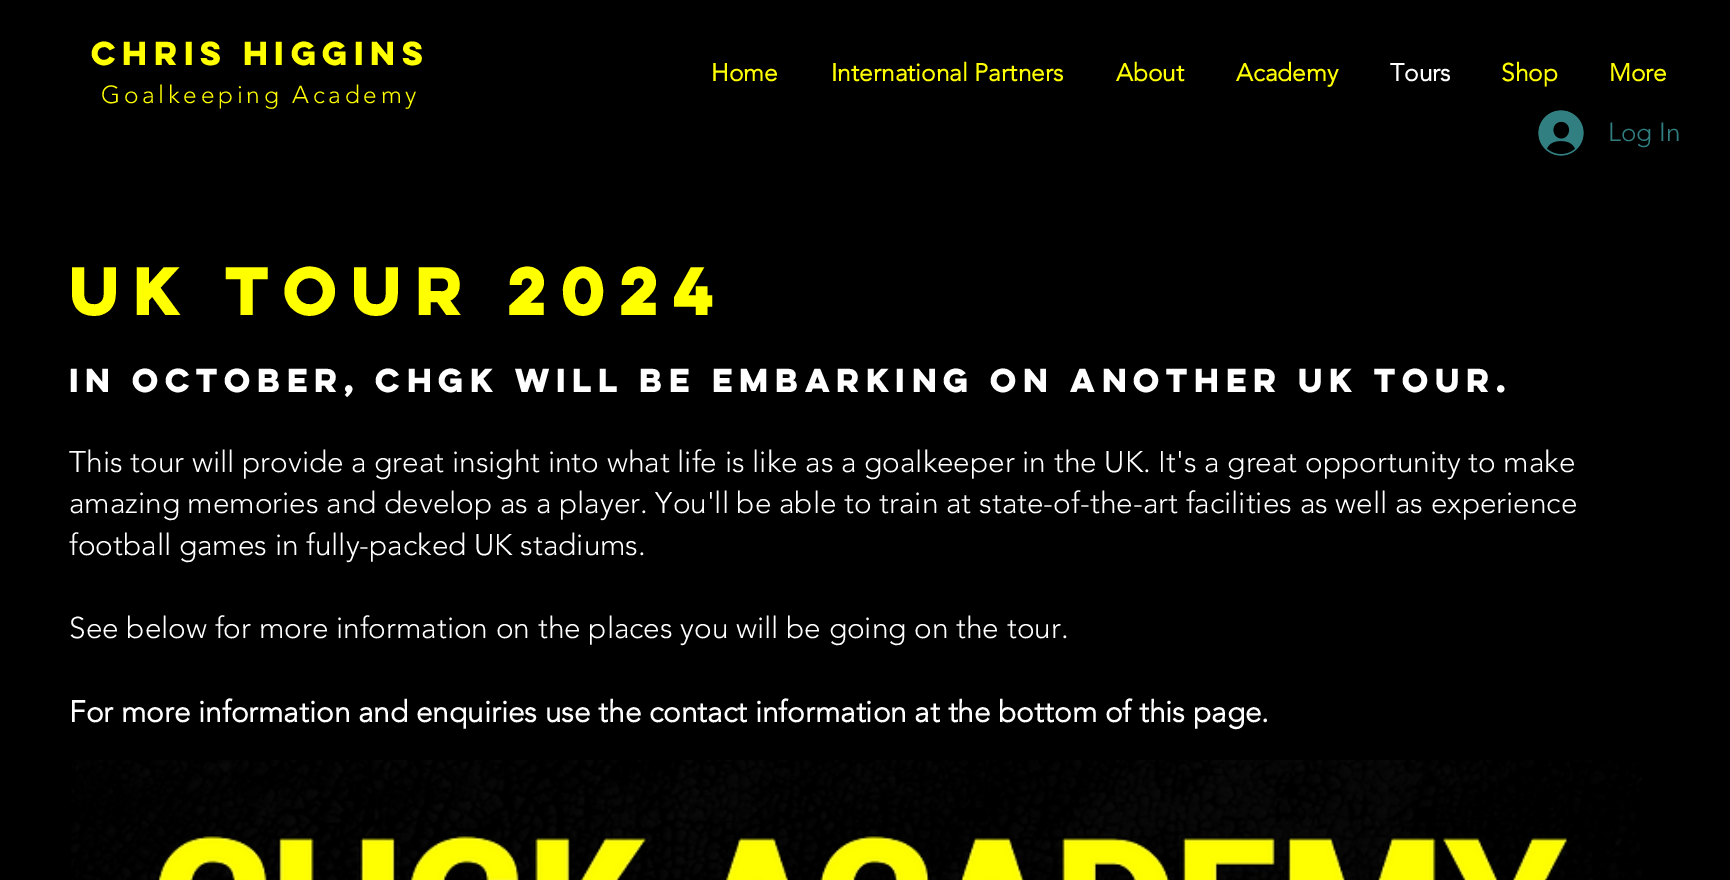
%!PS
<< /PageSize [1730 880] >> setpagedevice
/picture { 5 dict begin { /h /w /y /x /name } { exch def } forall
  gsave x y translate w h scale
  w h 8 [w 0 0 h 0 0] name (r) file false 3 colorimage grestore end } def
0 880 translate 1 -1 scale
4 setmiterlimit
0 setgray
0 0 1730 880 rectfill
/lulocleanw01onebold-Bold [29.75 0 0 -29.75 0 0] selectfont
1 1 0 setrgbcolor
91 65 moveto (Chris Higgins) show
/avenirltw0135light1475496-Bold [24.5 0 0 -24.5 0 0] selectfont
711 81 moveto (Home) show
831 81 moveto (International Partners) show
1116 81 moveto (About) show
1236 81 moveto (Academy) show
1 setgray
1390 81 moveto (Tours) show
1 1 0 setrgbcolor
1501 81 moveto (Shop) show
1609 81 moveto (More) show
/avenirltw0135light1475496-Light [24.5 0 0 -24.5 0 0] selectfont
101 103 moveto 3.7 0 (Goalkeeping Academy) ashow
(img1.rgb) 1538 110 46 46 picture
/avenirltw0135light1475496-Light [26 0 0 -26 0 0] selectfont
0.192 0.498 0.506 setrgbcolor
1608 141 moveto (Log In) show
/lulocleanw01onebold-Bold [61.25 0 0 -61.25 0 0] selectfont
1 1 0 setrgbcolor
69 315 moveto (Uk Tour 2024) show
/lulocleanw01onebold-Bold [29.75 0 0 -29.75 0 0] selectfont
1 setgray
69 392 moveto (In October, CHGK will be embarking on another UK Tour.) show
/avenirltw0135light1475496-Light [29.75 0 0 -29.75 0 0] selectfont
69 472 moveto (This tour will provide a great insight into what life is like as a goalkeeper in the UK. It's a great opportunity to make) show
69 513 moveto (amazing memories and develop as a player. You'll be able to train at state-of-the-art facilities as well as experience) show
69 555 moveto (football games in fully-packed UK stadiums.) show
69 638 moveto (See below for more information on the places you will be going on the tour.) show
/avenirltw0135light1475496-Bold [29.75 0 0 -29.75 0 0] selectfont
69 722 moveto (For more information and enquiries use the contact information at the bottom of this page.) show
(img2.rgb) 71 760 1571 120 picture
showpage
